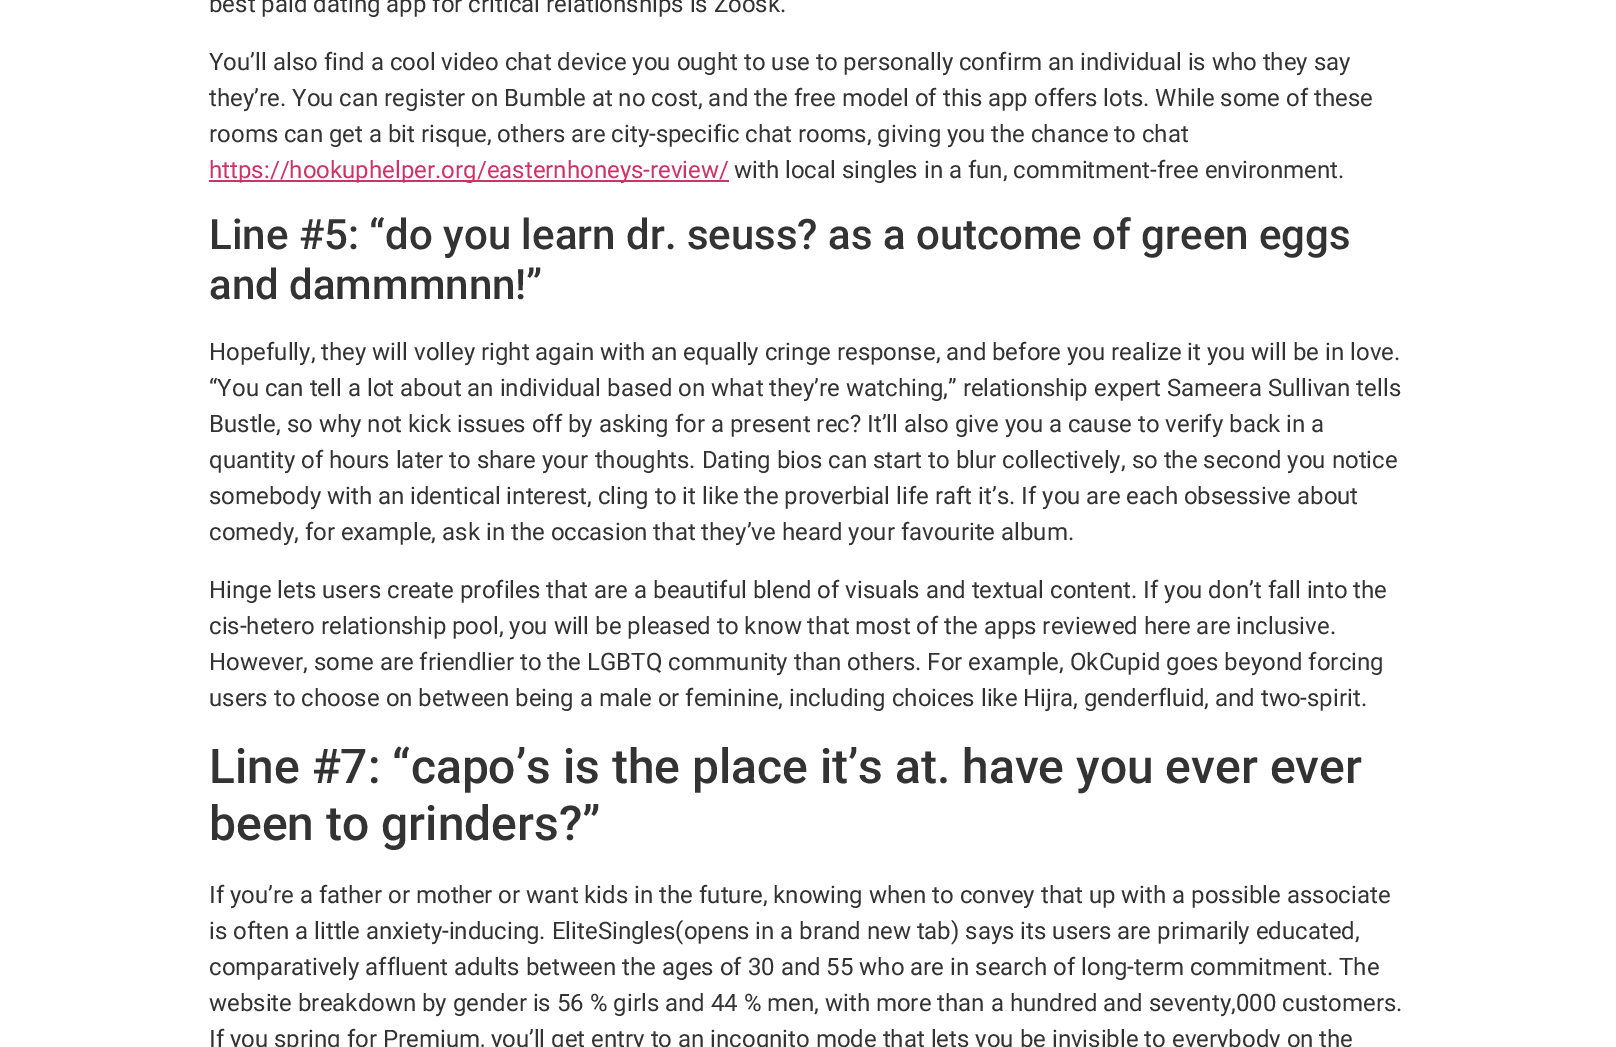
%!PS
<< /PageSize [1616 1047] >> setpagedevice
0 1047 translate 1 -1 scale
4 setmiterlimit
1 setgray
0 0 1616 1047 rectfill
/Roboto-Regular [24 0 0 -24 0 0] selectfont
0.2 setgray
209 12 moveto (best paid dating app for critical relationships is Zoosk.) show
209 70 moveto (You’ll also find a cool video chat device you ought to use to personally confirm an individual is who they say) show
209 106 moveto (they’re. You can register on Bumble at no cost, and the free model of this app offers lots. While some of these) show
209 142 moveto (rooms can get a bit risque, others are city-specific chat rooms, giving you the chance to chat) show
0.8 0.2 0.4 setrgbcolor
209 180 520 2 rectfill
209 178 moveto (https://hookuphelper.org/easternhoneys-review/) show
0.2 setgray
734 178 moveto (with local singles in a fun, commitment-free environment.) show
/Roboto-Medium [42 0 0 -42 0 0] selectfont
209 249 moveto (Line #5: “do you learn dr. seuss? as a outcome of green eggs) show
209 299 moveto (and dammmnnn!”) show
/Roboto-Regular [24 0 0 -24 0 0] selectfont
209 360 moveto (Hopefully, they will volley right again with an equally cringe response, and before you realize it you will be in love.) show
209 396 moveto (“You can tell a lot about an individual based on what they’re watching,” relationship expert Sameera Sullivan tells) show
209 432 moveto (Bustle, so why not kick issues off by asking for a present rec? It’ll also give you a cause to verify back in a) show
209 468 moveto (quantity of hours later to share your thoughts. Dating bios can start to blur collectively, so the second you notice) show
209 504 moveto (somebody with an identical interest, cling to it like the proverbial life raft it’s. If you are each obsessive about) show
209 540 moveto (comedy, for example, ask in the occasion that they’ve heard your favourite album.) show
209 598 moveto (Hinge lets users create profiles that are a beautiful blend of visuals and textual content. If you don’t fall into the) show
209 634 moveto (cis-hetero relationship pool, you will be pleased to know that most of the apps reviewed here are inclusive.) show
209 670 moveto (However, some are friendlier to the LGBTQ community than others. For example, OkCupid goes beyond forcing) show
209 706 moveto (users to choose on between being a male or feminine, including choices like Hijra, genderfluid, and two-spirit.) show
/Roboto-Medium [48 0 0 -48 0 0] selectfont
209 783 moveto (Line #7: “capo’s is the place it’s at. have you ever ever) show
209 840 moveto (been to grinders?”) show
/Roboto-Regular [24 0 0 -24 0 0] selectfont
209 903 moveto (If you’re a father or mother or want kids in the future, knowing when to convey that up with a possible associate) show
209 939 moveto (is often a little anxiety-inducing. EliteSingles\(opens in a brand new tab\) says its users are primarily educated,) show
209 975 moveto (comparatively affluent adults between the ages of 30 and 55 who are in search of long-term commitment. The) show
209 1011 moveto (website breakdown by gender is 56 % girls and 44 % men, with more than a hundred and seventy,000 customers.) show
209 1047 moveto (If you spring for Premium, you’ll get entry to an incognito mode that lets you be invisible to everybody on the) show
showpage
